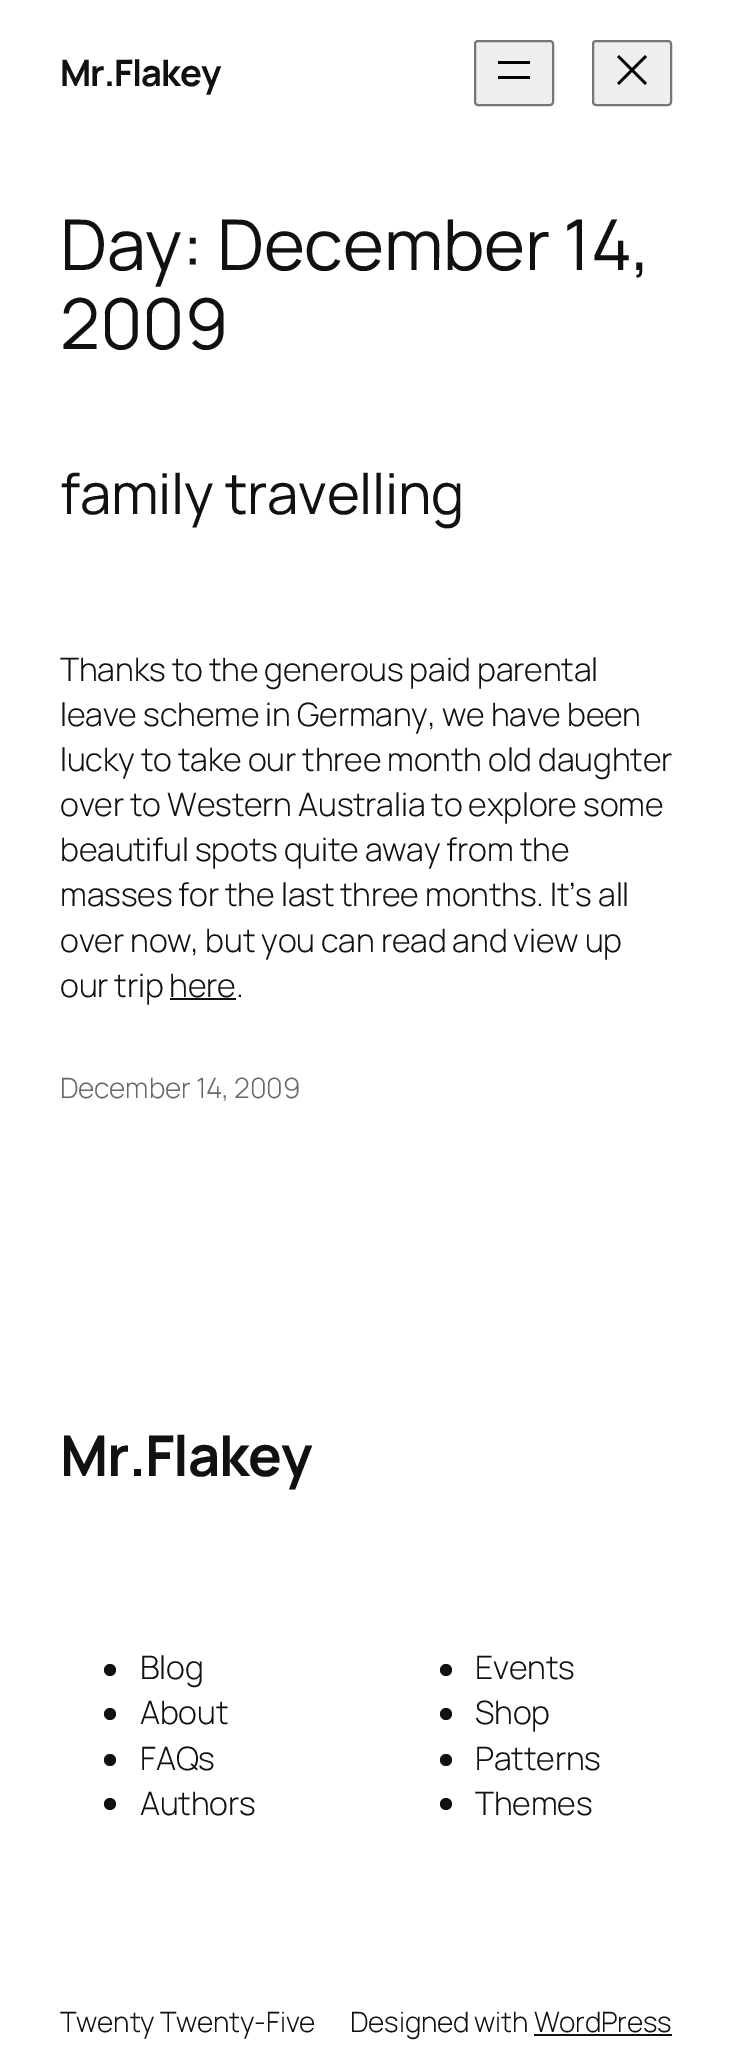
%!PS
<< /PageSize [732 2063] >> setpagedevice
/roundrect { 5 dict begin { /r /h /w /y /x } { exch def } forall
  x r add y moveto x w add y 2 copy h add r arct x w add y h add x 1 index r arct
  x y h add x y r arct x y 2 copy exch w add exch r arct closepath end } def
/picture { 5 dict begin { /h /w /y /x /name } { exch def } forall
  gsave x y translate w h scale
  w h 8 [w 0 0 h 0 0] name (r) file false 3 colorimage grestore end } def
0 2063 translate 1 -1 scale
4 setmiterlimit
1 setgray
0 0 732 2063 rectfill
/Manrope-Bold [36.5 0 0 -36.5 0 0] selectfont
0.067 setgray
60 86 moveto -1 0 (Mr.Flakey) ashow
0.937 setgray
475 41 78 64 3 roundrect gsave fill grestore
0.463 setgray
2 setlinewidth
stroke
0 setgray
498 61 32 3 rectfill
498 76 32 3 rectfill
0.937 setgray
593 41 78 64 3 roundrect gsave fill grestore
0.463 setgray
stroke
(img1.rgb) 617 55 30 30 picture
/Manrope-Regular [70 0 0 -70 0 0] selectfont
0.067 setgray
60 270 moveto -0.2 0 (Day: December 14,) ashow
60 349 moveto -0.2 0 (2009) ashow
/Manrope-Regular [56.25 0 0 -56.25 0 0] selectfont
60 514 moveto -0.2 0 (family travelling) ashow
/Manrope-Light [32.2 0 0 -32.2 0 0] selectfont
60 681 moveto -0.2 0 (Thanks to the generous paid parental) ashow
60 726 moveto -0.2 0 (leave scheme in Germany, we have been) ashow
60 771 moveto -0.2 0 (lucky to take our three month old daughter) ashow
60 816 moveto -0.2 0 (over to Western Australia to explore some) ashow
60 861 moveto -0.2 0 (beautiful spots quite away from the) ashow
60 906 moveto -0.2 0 (masses for the last three months. It’s all) ashow
60 952 moveto -0.2 0 (over now, but you can read and view up) ashow
60 997 moveto -0.2 0 (our trip here.) ashow
170 998 66 2 rectfill
/Manrope-Light [28 0 0 -28 0 0] selectfont
0.408 setgray
60 1098 moveto -0.2 0 (December 14, 2009) ashow
/Manrope-Bold [56.25 0 0 -56.25 0 0] selectfont
0.067 setgray
60 1476 moveto -1 0 (Mr.Flakey) ashow
newpath 110 1670 6 0 360 arc closepath fill
/Manrope-Light [32.2 0 0 -32.2 0 0] selectfont
140 1679 moveto -0.2 0 (Blog) ashow
newpath 110 1714 6 0 360 arc closepath fill
140 1724 moveto -0.2 0 (About) ashow
newpath 110 1760 6 0 360 arc closepath fill
140 1770 moveto -0.2 0 (FAQs) ashow
newpath 110 1804 6 0 360 arc closepath fill
140 1815 moveto -0.2 0 (Authors) ashow
newpath 446 1670 6 0 360 arc closepath fill
475 1679 moveto -0.2 0 (Events) ashow
newpath 446 1714 6 0 360 arc closepath fill
475 1724 moveto -0.2 0 (Shop) ashow
newpath 446 1760 6 0 360 arc closepath fill
475 1770 moveto -0.2 0 (Patterns) ashow
newpath 446 1804 6 0 360 arc closepath fill
475 1815 moveto -0.2 0 (Themes) ashow
/Manrope-Light [28 0 0 -28 0 0] selectfont
60 2032 moveto -0.2 0 (Twenty Twenty-Five) ashow
350 2032 moveto -0.2 0 (Designed with WordPress) ashow
534 2034 138 2 rectfill
showpage
